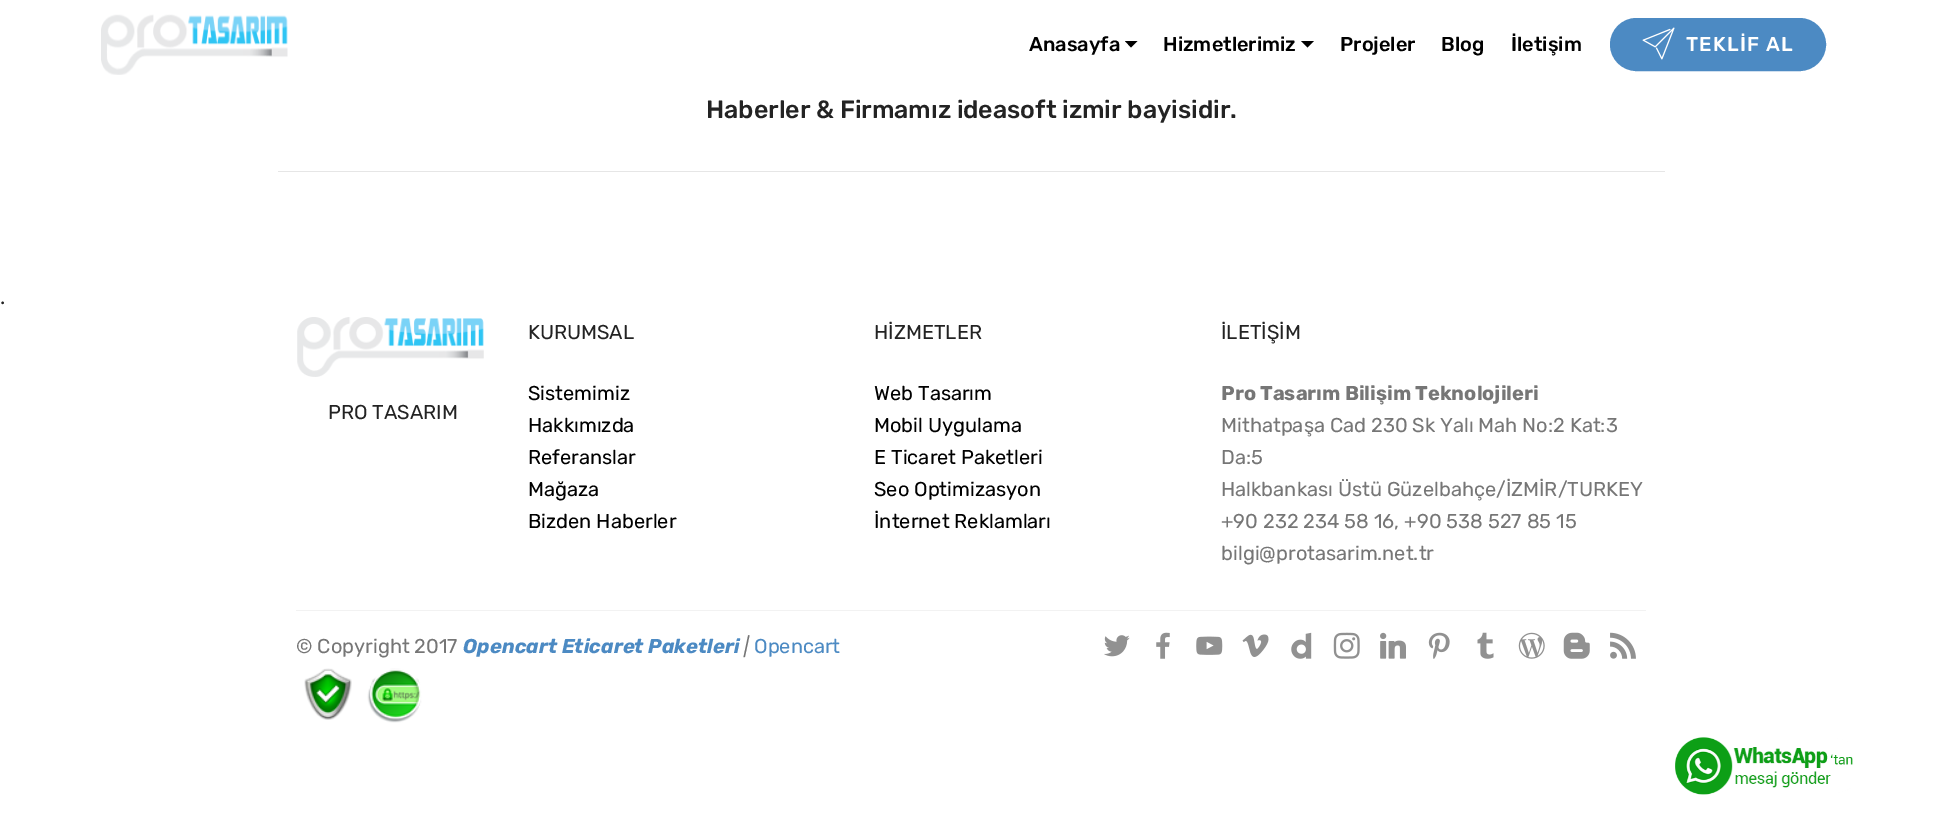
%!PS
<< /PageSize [1942 819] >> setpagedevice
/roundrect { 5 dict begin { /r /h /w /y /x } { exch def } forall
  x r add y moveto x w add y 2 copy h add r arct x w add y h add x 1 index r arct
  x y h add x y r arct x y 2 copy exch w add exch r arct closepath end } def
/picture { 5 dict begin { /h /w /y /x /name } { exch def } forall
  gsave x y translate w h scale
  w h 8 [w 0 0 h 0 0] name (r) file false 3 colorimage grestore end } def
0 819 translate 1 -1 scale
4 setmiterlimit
1 setgray
0 0 1942 819 rectfill
(img1.rgb) 101 14 187 61 picture
/Rubik-Medium [20 0 0 -20 0 0] selectfont
0 setgray
1029 51 moveto (Anasayfa) show
newpath 1125 41 moveto 1137.5 41 lineto 1131 47.5 lineto closepath fill
1163 51 moveto (Hizmetlerimiz) show
newpath 1301 41 moveto 1314 41 lineto 1307.5 47.5 lineto closepath fill
1340 51 moveto (Projeler) show
1441 51 moveto (Blog) show
1511 51 moveto (İletişim) show
0.298 0.541 0.765 setrgbcolor
1611.5 19.5 213 50 25 roundrect gsave fill grestore
3 setlinewidth
stroke
(img2.rgb) 1642 27 33 33 picture
1 setgray
1686 51 moveto 1.25 0 (TEKLİF AL) ashow
/Rubik-Medium [25 0 0 -25 0 0] selectfont
0.137 setgray
706 118 moveto (Haberler & Firmamız ideasoft izmir bayisidir.) show
0.902 setgray
278 171 1387 1 rectfill
/Roboto-Medium [20 0 0 -20 0 0] selectfont
0.137 setgray
0 304 moveto (.) show
(img3.rgb) 297 317 187 60 picture
/Rubik-Regular [20 0 0 -20 0 0] selectfont
328 419 moveto (PRO TASARIM) show
528 339 moveto (KURUMSAL) show
0 setgray
528 400 moveto (Sistemimiz) show
528 432 moveto (Hakkımızda) show
528 464 moveto (Referanslar) show
528 496 moveto (Mağaza) show
528 528 moveto (Bizden Haberler) show
0.137 setgray
874 339 moveto (HİZMETLER) show
0 setgray
874 400 moveto (Web Tasarım) show
874 432 moveto (Mobil Uygulama) show
874 464 moveto (E Ticaret Paketleri) show
874 496 moveto (Seo Optimizasyon) show
874 528 moveto (İnternet Reklamları) show
0.137 setgray
1221 339 moveto (İLETİŞİM) show
/Rubik-Bold [20 0 0 -20 0 0] selectfont
0.463 setgray
1221 400 moveto (Pro Tasarım Bilişim Teknolojileri) show
/Rubik-Regular [20 0 0 -20 0 0] selectfont
1221 432 moveto (Mithatpaşa Cad 230 Sk Yalı Mah No:2 Kat:3) show
1221 464 moveto (Da:5) show
1221 496 moveto (Halkbankası Üstü Güzelbahçe/İZMİR/TURKEY) show
1221 528 moveto (+90 232 234 58 16, +90 538 527 85 15) show
1221 560 moveto (bilgi@protasarim.net.tr) show
0.949 setgray
296 610 1350 1 rectfill
0.463 setgray
296 653 moveto (© Copyright 2017) show
/Rubik-BoldItalic [20 0 0 -20 0 0] selectfont
0.298 0.541 0.765 setrgbcolor
463 653 moveto (Opencart Eticaret Paketleri) show
/Rubik-Italic [20 0 0 -20 0 0] selectfont
0.463 setgray
744 653 moveto (|) show
/Rubik-Regular [20 0 0 -20 0 0] selectfont
0.298 0.541 0.765 setrgbcolor
754 653 moveto (Opencart) show
(img4.rgb) 304 668 48 52 picture
(img5.rgb) 367 668 55 55 picture
(img6.rgb) 1104 635 26 22 picture
(img7.rgb) 1156 632 14 27 picture
(img8.rgb) 1196 636 27 19 picture
(img9.rgb) 1242 634 27 23 picture
(img10.rgb) 1291 632 21 27 picture
(img11.rgb) 1333 632 27 27 picture
(img12.rgb) 1380 632 26 27 picture
(img13.rgb) 1428 632 22 27 picture
(img14.rgb) 1477 632 17 27 picture
(img15.rgb) 1518 632 27 27 picture
(img16.rgb) 1563 632 27 27 picture
(img17.rgb) 1610 632 26 27 picture
(img18.rgb) 1675 737 178 58 picture
showpage
